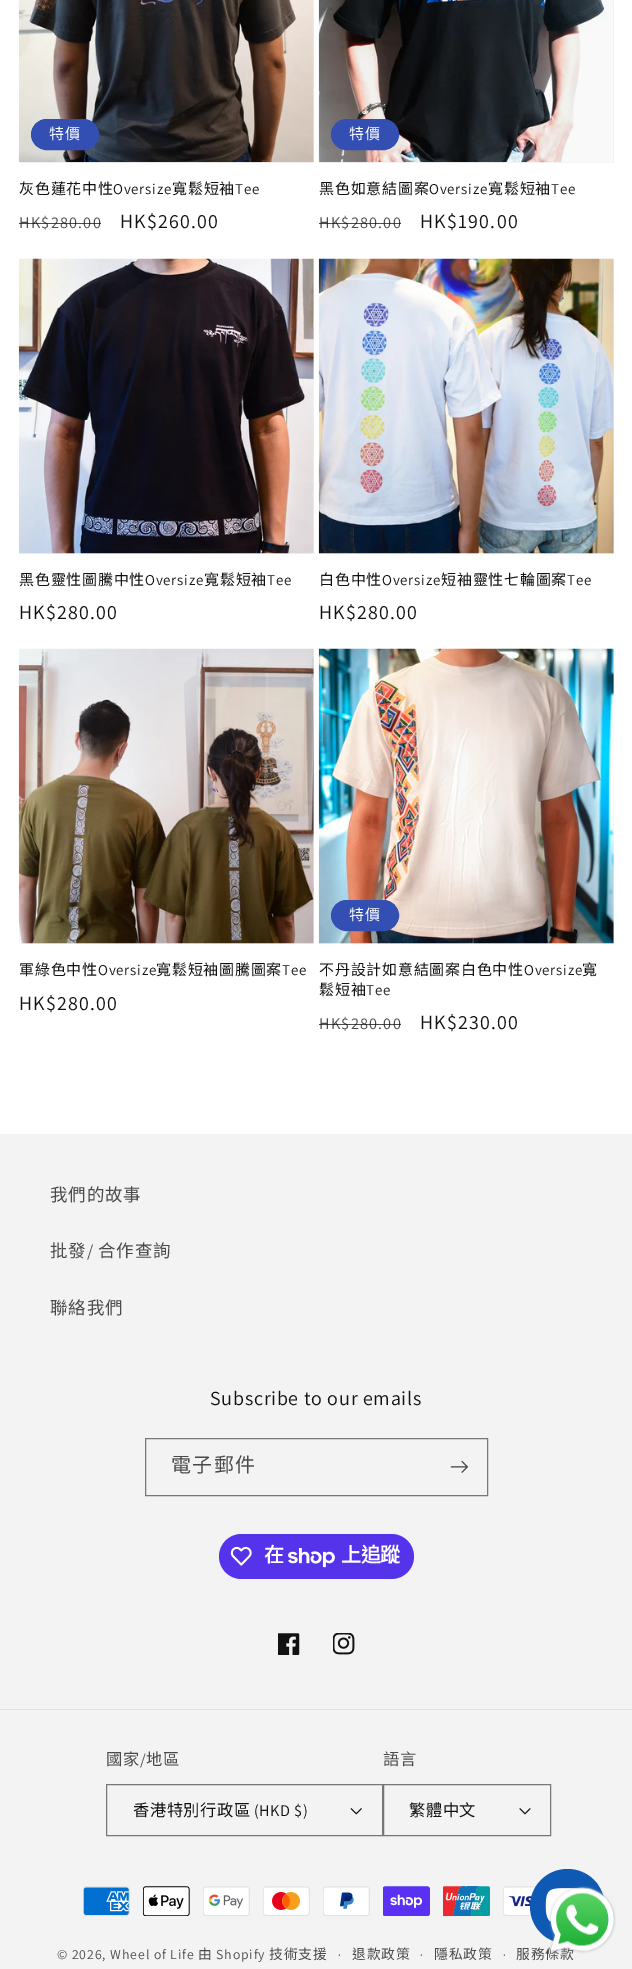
%!PS
<< /PageSize [632 1969] /PageUsesTransparency true >> setpagedevice
/alpha { dup .setfillconstantalpha .setstrokeconstantalpha } def
/roundrect { 5 dict begin { /r /h /w /y /x } { exch def } forall
  x r add y moveto x w add y 2 copy h add r arct x w add y h add x 1 index r arct
  x y h add x y r arct x y 2 copy exch w add exch r arct closepath end } def
/picture { 5 dict begin { /h /w /y /x /name } { exch def } forall
  gsave x y translate w h scale
  w h 8 [w 0 0 h 0 0] name (r) file false 3 colorimage grestore end } def
0 .pushpdf14devicefilter
0 1969 translate 1 -1 scale
4 setmiterlimit
1 setgray
0 0 632 1969 rectfill
0.953 setgray
19 0 295 163 rectfill
(img1.rgb) 18 0 296 163 picture
0.2 0.31 0.706 setrgbcolor
31.5 119.5 67 30 15 roundrect gsave fill grestore
stroke
/NotoSansCJKTC-Regular [15 0 0 -15 0 0] selectfont
1 setgray
49 139 moveto 1.25 0 (特價) ashow
0.071 setgray
19 194 moveto 0.75 0 (灰色蓮花中性) ashow
/Assistant-Regular [15 0 0 -15 0 0] selectfont
113 194 moveto 0.75 0 (Oversize) ashow
/NotoSansCJKTC-Regular [15 0 0 -15 0 0] selectfont
172 194 moveto 0.75 0 (寬鬆短袖) ashow
/Assistant-Regular [15 0 0 -15 0 0] selectfont
235 194 moveto 0.75 0 (Tee) ashow
/Assistant-Regular [16.25 0 0 -16.25 0 0] selectfont
0.29 setgray
19 228 moveto 1.25 0 (HK$280.00) ashow
0.75 alpha
0.071 setgray
19 223 82 1 rectfill
/Assistant-Regular [20 0 0 -20 0 0] selectfont
1 alpha
120 228 moveto 1.25 0 (HK$260.00) ashow
0.953 setgray
319 0 295 163 rectfill
(img2.rgb) 318 0 295 163 picture
0.2 0.31 0.706 setrgbcolor
331.5 119.5 67 30 15 roundrect gsave fill grestore
stroke
/NotoSansCJKTC-Regular [15 0 0 -15 0 0] selectfont
1 setgray
349 139 moveto 1.25 0 (特價) ashow
0.071 setgray
319 194 moveto 0.75 0 (黑色如意結圖案) ashow
/Assistant-Regular [15 0 0 -15 0 0] selectfont
429 194 moveto 0.75 0 (Oversize) ashow
/NotoSansCJKTC-Regular [15 0 0 -15 0 0] selectfont
488 194 moveto 0.75 0 (寬鬆短袖) ashow
/Assistant-Regular [15 0 0 -15 0 0] selectfont
551 194 moveto 0.75 0 (Tee) ashow
/Assistant-Regular [16.25 0 0 -16.25 0 0] selectfont
0.29 setgray
319 228 moveto 1.25 0 (HK$280.00) ashow
0.75 alpha
0.071 setgray
319 223 82 1 rectfill
/Assistant-Regular [20 0 0 -20 0 0] selectfont
1 alpha
420 228 moveto 1.25 0 (HK$190.00) ashow
0.953 setgray
19 259 295 295 rectfill
(img3.rgb) 18 258 296 296 picture
/NotoSansCJKTC-Regular [15 0 0 -15 0 0] selectfont
0.071 setgray
19 585 moveto 0.75 0 (黑色靈性圖騰中性) ashow
/Assistant-Regular [15 0 0 -15 0 0] selectfont
145 585 moveto 0.75 0 (Oversize) ashow
/NotoSansCJKTC-Regular [15 0 0 -15 0 0] selectfont
204 585 moveto 0.75 0 (寬鬆短袖) ashow
/Assistant-Regular [15 0 0 -15 0 0] selectfont
267 585 moveto 0.75 0 (Tee) ashow
/Assistant-Regular [20 0 0 -20 0 0] selectfont
19 619 moveto 1.25 0 (HK$280.00) ashow
0.953 setgray
319 259 295 295 rectfill
(img4.rgb) 318 258 296 296 picture
/NotoSansCJKTC-Regular [15 0 0 -15 0 0] selectfont
0.071 setgray
319 585 moveto 0.75 0 (白色中性) ashow
/Assistant-Regular [15 0 0 -15 0 0] selectfont
382 585 moveto 0.75 0 (Oversize) ashow
/NotoSansCJKTC-Regular [15 0 0 -15 0 0] selectfont
441 585 moveto 0.75 0 (短袖靈性七輪圖案) ashow
/Assistant-Regular [15 0 0 -15 0 0] selectfont
567 585 moveto 0.75 0 (Tee) ashow
/Assistant-Regular [20 0 0 -20 0 0] selectfont
319 619 moveto 1.25 0 (HK$280.00) ashow
0.953 setgray
19 649 295 295 rectfill
(img5.rgb) 18 648 296 296 picture
/NotoSansCJKTC-Regular [15 0 0 -15 0 0] selectfont
0.071 setgray
19 975 moveto 0.75 0 (軍綠色中性) ashow
/Assistant-Regular [15 0 0 -15 0 0] selectfont
98 975 moveto 0.75 0 (Oversize) ashow
/NotoSansCJKTC-Regular [15 0 0 -15 0 0] selectfont
156 975 moveto 0.75 0 (寬鬆短袖圖騰圖案) ashow
/Assistant-Regular [15 0 0 -15 0 0] selectfont
282 975 moveto 0.75 0 (Tee) ashow
/Assistant-Regular [20 0 0 -20 0 0] selectfont
19 1010 moveto 1.25 0 (HK$280.00) ashow
0.953 setgray
319 649 295 295 rectfill
(img6.rgb) 318 648 296 296 picture
0.2 0.31 0.706 setrgbcolor
331.5 900.5 67 30 15 roundrect gsave fill grestore
stroke
/NotoSansCJKTC-Regular [15 0 0 -15 0 0] selectfont
1 setgray
349 920 moveto 1.25 0 (特價) ashow
0.071 setgray
319 975 moveto 0.75 0 (不丹設計如意結圖案白色中性) ashow
/Assistant-Regular [15 0 0 -15 0 0] selectfont
524 975 moveto 0.75 0 (Oversize) ashow
/NotoSansCJKTC-Regular [15 0 0 -15 0 0] selectfont
582 975 moveto 0.75 0 (寬) ashow
319 995 moveto 0.75 0 (鬆短袖) ashow
/Assistant-Regular [15 0 0 -15 0 0] selectfont
366 995 moveto 0.75 0 (Tee) ashow
/Assistant-Regular [16.25 0 0 -16.25 0 0] selectfont
0.29 setgray
319 1029 moveto 1.25 0 (HK$280.00) ashow
0.75 alpha
0.071 setgray
319 1024 82 1 rectfill
/Assistant-Regular [20 0 0 -20 0 0] selectfont
1 alpha
420 1029 moveto 1.25 0 (HK$230.00) ashow
0.953 setgray
0 1134 632 835 rectfill
/NotoSansCJKTC-Regular [17.5 0 0 -17.5 0 0] selectfont
0.29 setgray
50 1201 moveto 0.75 0 (我們的故事) ashow
50 1257 moveto 0.75 0 (批發) ashow
/Assistant-Regular [17.5 0 0 -17.5 0 0] selectfont
87 1257 moveto 0.75 0 (/) ashow
/NotoSansCJKTC-Regular [17.5 0 0 -17.5 0 0] selectfont
98 1257 moveto 0.75 0 (合作查詢) ashow
50 1314 moveto 0.75 0 (聯絡我們) ashow
/Assistant-Regular [20 0 0 -20 0 0] selectfont
0.071 setgray
210 1405 moveto 0.75 0 (Subscribe to our emails) ashow
0.467 setgray
145.5 1438.5 342 57 rectstroke
/NotoSansCJKTC-Regular [20 0 0 -20 0 0] selectfont
0.29 setgray
171 1472 moveto 1.25 0 (電子郵件) ashow
(img7.rgb) 450 1460 18 13 picture
0.329 0.2 0.922 setrgbcolor
219 1534 195 45 22.5 roundrect fill
(img8.rgb) 230 1546 22 20 picture
/NotoSansCJKTC-Bold [20 0 0 -20 0 0] selectfont
1 setgray
264 1562 moveto -0.5 0 (在) ashow
(img9.rgb) 288 1548 47 20 picture
341 1562 moveto -0.5 0 (上追蹤) ashow
(img10.rgb) 278 1633 22 22 picture
(img11.rgb) 333 1633 22 22 picture
0.882 setgray
0 1709 632 1 rectfill
/NotoSansCJKTC-Regular [16.25 0 0 -16.25 0 0] selectfont
0.29 setgray
106 1765 moveto 0.5 0 (國家) ashow
/Assistant-Regular [16.25 0 0 -16.25 0 0] selectfont
140 1765 moveto 0.5 0 (/) ashow
/NotoSansCJKTC-Regular [16.25 0 0 -16.25 0 0] selectfont
146 1765 moveto 0.5 0 (地區) ashow
(img12.rgb) 350 1808 12 7 picture
0.467 setgray
106.5 1784.5 276 51 rectstroke
0.071 setgray
133 1816 moveto 0.5 0 (香港特別行政區) ashow
/Assistant-Regular [16.25 0 0 -16.25 0 0] selectfont
254 1816 moveto 0.5 0 (\(HKD $\)) ashow
/NotoSansCJKTC-Regular [16.25 0 0 -16.25 0 0] selectfont
0.29 setgray
383 1765 moveto 0.5 0 (語言) ashow
(img13.rgb) 519 1808 12 7 picture
0.467 setgray
383.5 1784.5 167 51 rectstroke
0.071 setgray
409 1816 moveto 0.5 0 (繁體中文) ashow
(img14.rgb) 83 1886 47 30 picture
(img15.rgb) 143 1886 47 30 picture
(img16.rgb) 203 1886 47 30 picture
(img17.rgb) 263 1886 47 30 picture
(img18.rgb) 323 1886 47 30 picture
(img19.rgb) 383 1886 47 30 picture
(img20.rgb) 443 1886 47 30 picture
(img21.rgb) 503 1886 34 30 picture
/Assistant-Regular [13.75 0 0 -13.75 0 0] selectfont
0.29 setgray
57 1959 moveto 0.9 0 (© 2026, Wheel of Life) ashow
/NotoSansCJKTC-Regular [13.75 0 0 -13.75 0 0] selectfont
198 1959 moveto 0.9 0 (由) ashow
/Assistant-Regular [13.75 0 0 -13.75 0 0] selectfont
216 1959 moveto 0.9 0 (Shopify) ashow
/NotoSansCJKTC-Regular [13.75 0 0 -13.75 0 0] selectfont
269 1959 moveto 0.9 0 (技術支援) ashow
/Assistant-Regular [12 0 0 -12 0 0] selectfont
338 1959 moveto 0.9 0 (·) ashow
/NotoSansCJKTC-Regular [13.75 0 0 -13.75 0 0] selectfont
352 1959 moveto 0.9 0 (退款政策) ashow
/Assistant-Regular [12 0 0 -12 0 0] selectfont
420 1959 moveto 0.9 0 (·) ashow
/NotoSansCJKTC-Regular [13.75 0 0 -13.75 0 0] selectfont
434 1959 moveto 0.9 0 (隱私政策) ashow
/Assistant-Regular [12 0 0 -12 0 0] selectfont
503 1959 moveto 0.9 0 (·) ashow
/NotoSansCJKTC-Regular [13.75 0 0 -13.75 0 0] selectfont
516 1959 moveto 0.9 0 (服務條款) ashow
0.055 0.349 0.706 setrgbcolor
newpath 567.5 1906.5 37.5 0 360 arc closepath fill
(img22.rgb) 545 1888 37 35 picture
(img23.rgb) 548 1885 68 69 picture
.poppdf14devicefilter showpage
